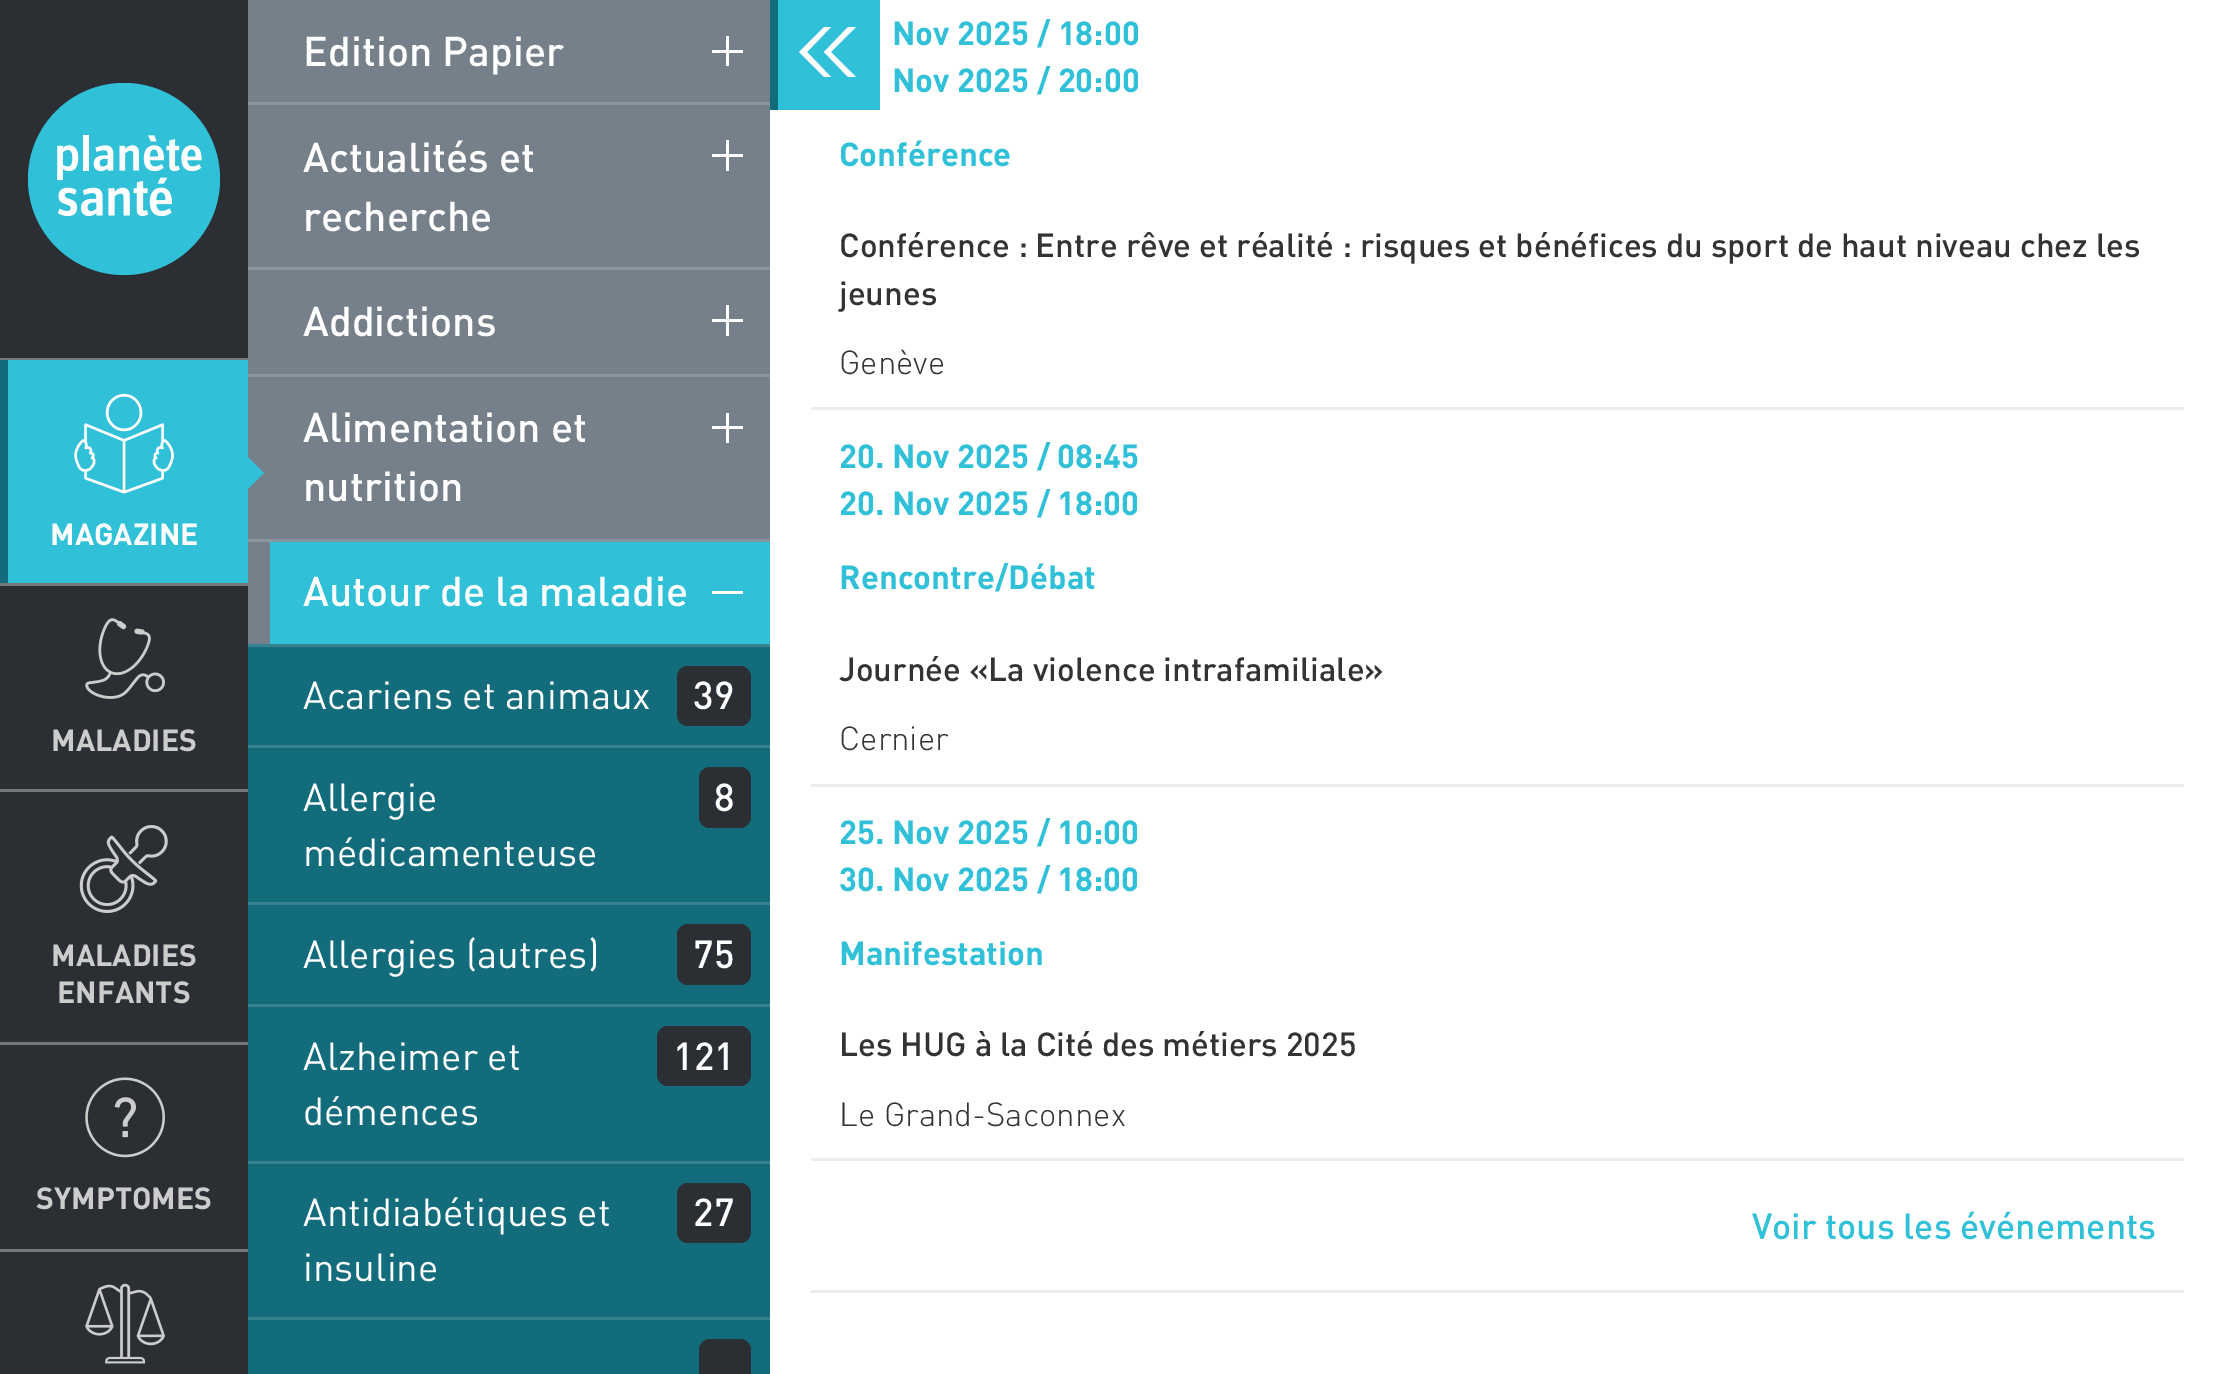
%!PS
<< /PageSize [2224 1374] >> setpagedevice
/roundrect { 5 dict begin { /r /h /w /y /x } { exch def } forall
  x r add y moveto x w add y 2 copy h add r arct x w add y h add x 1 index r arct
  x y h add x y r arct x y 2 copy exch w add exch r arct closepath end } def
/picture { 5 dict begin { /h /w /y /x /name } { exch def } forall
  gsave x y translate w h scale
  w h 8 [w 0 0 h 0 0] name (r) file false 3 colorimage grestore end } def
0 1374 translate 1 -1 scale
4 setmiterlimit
1 setgray
0 0 2224 1374 rectfill
0.169 0.184 0.2 setrgbcolor
0 0 248 1374 rectfill
0.463 0.502 0.541 setrgbcolor
248 0 522 644 rectfill
0.459 0.471 0.478 setrgbcolor
0 358 248 2 rectfill
0 583 248 3 rectfill
0.188 0.753 0.847 setrgbcolor
8 360 240 223 rectfill
0.071 0.424 0.486 setrgbcolor
0 360 8 223 rectfill
(img1.rgb) 74 393 100 101 picture
0.188 0.753 0.847 setrgbcolor
newpath 247.5 489.5 moveto 247.5 456.5 lineto 264 473 lineto closepath fill
/DIN-Bold [30.25 0 0 -30.25 0 0] selectfont
1 setgray
50 545 moveto (MAGAZINE) show
0.545 0.576 0.612 setrgbcolor
248 102 522 3 rectfill
/DIN-Medium [41.25 0 0 -41.25 0 0] selectfont
1 setgray
303 66 moveto (Edition Papier) show
712 50 31 3 rectfill
726 36 3 30 rectfill
0.545 0.576 0.612 setrgbcolor
248 267 522 3 rectfill
1 setgray
303 172 moveto (Actualités et) show
303 231 moveto (recherche) show
712 154 31 3 rectfill
726 140 3 31 rectfill
0.545 0.576 0.612 setrgbcolor
248 374 522 3 rectfill
1 setgray
303 336 moveto (Addictions) show
712 319 31 3 rectfill
726 305 3 31 rectfill
0.545 0.576 0.612 setrgbcolor
248 539 522 3 rectfill
1 setgray
303 442 moveto (Alimentation et) show
303 501 moveto (nutrition) show
712 426 31 3 rectfill
726 413 3 30 rectfill
0.188 0.753 0.847 setrgbcolor
270 542 500 102 rectfill
1 setgray
303 606 moveto (Autour de la maladie) show
712 591 31 3 rectfill
0.071 0.424 0.486 setrgbcolor
248 647 522 727 rectfill
0.212 0.51 0.565 setrgbcolor
248 644 522 3 rectfill
/DIN-Regular [38.5 0 0 -38.5 0 0] selectfont
1 setgray
303 709 moveto (Acariens et animaux) show
0.169 0.184 0.2 setrgbcolor
677 666 74 60 11 roundrect fill
/DIN-Medium [38.5 0 0 -38.5 0 0] selectfont
1 setgray
693 709 moveto (39) show
0.212 0.51 0.565 setrgbcolor
248 745 522 3 rectfill
/DIN-Regular [38.5 0 0 -38.5 0 0] selectfont
1 setgray
303 811 moveto (Allergie) show
303 866 moveto (médicamenteuse) show
0.169 0.184 0.2 setrgbcolor
699 767 52 61 11 roundrect fill
/DIN-Medium [38.5 0 0 -38.5 0 0] selectfont
1 setgray
714 811 moveto (8) show
0.212 0.51 0.565 setrgbcolor
248 902 522 3 rectfill
/DIN-Regular [38.5 0 0 -38.5 0 0] selectfont
1 setgray
303 968 moveto (Allergies \(autres\)) show
0.169 0.184 0.2 setrgbcolor
677 924 74 61 11 roundrect fill
/DIN-Medium [38.5 0 0 -38.5 0 0] selectfont
1 setgray
693 968 moveto (75) show
0.212 0.51 0.565 setrgbcolor
248 1004 522 3 rectfill
/DIN-Regular [38.5 0 0 -38.5 0 0] selectfont
1 setgray
303 1070 moveto (Alzheimer et) show
303 1125 moveto (démences) show
0.169 0.184 0.2 setrgbcolor
657 1026 94 60 11 roundrect fill
/DIN-Medium [38.5 0 0 -38.5 0 0] selectfont
1 setgray
673 1070 moveto (121) show
0.212 0.51 0.565 setrgbcolor
248 1161 522 3 rectfill
/DIN-Regular [38.5 0 0 -38.5 0 0] selectfont
1 setgray
303 1226 moveto (Antidiabétiques et) show
303 1281 moveto (insuline) show
0.169 0.184 0.2 setrgbcolor
677 1183 74 60 11 roundrect fill
/DIN-Medium [38.5 0 0 -38.5 0 0] selectfont
1 setgray
693 1226 moveto (27) show
0.212 0.51 0.565 setrgbcolor
248 1317 522 3 rectfill
0.169 0.184 0.2 setrgbcolor
newpath 710 1339 moveto 740 1339 lineto 746 1339 751 1344 751 1350 curveto 751 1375 lineto 699 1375 lineto 699 1350 lineto 699 1344 704 1339 710 1339 curveto closepath fill
0.459 0.471 0.478 setrgbcolor
0 789 248 3 rectfill
(img2.rgb) 85 618 80 81 picture
/DIN-Bold [30.25 0 0 -30.25 0 0] selectfont
0.8 setgray
51 751 moveto (MALADIES) show
0.459 0.471 0.478 setrgbcolor
0 1042 248 3 rectfill
(img3.rgb) 79 825 89 88 picture
0.8 setgray
51 966 moveto (MALADIES) show
57 1003 moveto (ENFANTS) show
0.459 0.471 0.478 setrgbcolor
0 1249 248 3 rectfill
(img4.rgb) 85 1077 80 81 picture
0.8 setgray
36 1209 moveto (SYMPTOMES) show
(img5.rgb) 85 1283 80 81 picture
0.188 0.753 0.847 setrgbcolor
778 0 102 110 rectfill
0.071 0.424 0.486 setrgbcolor
770 0 8 110 rectfill
1 setgray
newpath 831 77 moveto 824 77 lineto 799 52 lineto 824 27 lineto 831 27 lineto 807 52 lineto closepath 856 77 moveto 848 77 lineto 824 52 lineto 848 27 lineto 856 27 lineto 831 52 lineto closepath fill
0.188 0.753 0.847 setrgbcolor
newpath 124 179 96 0 360 arc closepath fill
(img6.rgb) 57 135 145 82 picture
0.929 setgray
811 407 1373 3 rectfill
/DIN-Bold [33 0 0 -33 0 0] selectfont
0.188 0.753 0.847 setrgbcolor
892 45 moveto (Nov 2025 / 18:00) show
892 92 moveto (Nov 2025 / 20:00) show
839 166 moveto (Conférence) show
/DIN-Medium [33 0 0 -33 0 0] selectfont
0.2 setgray
839 257 moveto (Conférence : Entre rêve et réalité : risques et bénéfices du sport de haut niveau chez les) show
839 305 moveto (jeunes) show
/DIN-Light [33 0 0 -33 0 0] selectfont
839 374 moveto (Genève) show
0.929 setgray
811 784 1373 3 rectfill
/DIN-Bold [33 0 0 -33 0 0] selectfont
0.188 0.753 0.847 setrgbcolor
839 468 moveto (20. Nov 2025 / 08:45) show
839 515 moveto (20. Nov 2025 / 18:00) show
839 589 moveto (Rencontre/Débat) show
/DIN-Medium [33 0 0 -33 0 0] selectfont
0.2 setgray
839 681 moveto (Journée «La violence intrafamiliale») show
/DIN-Light [33 0 0 -33 0 0] selectfont
839 750 moveto (Cernier) show
0.929 setgray
811 1158 1373 3 rectfill
/DIN-Bold [33 0 0 -33 0 0] selectfont
0.188 0.753 0.847 setrgbcolor
839 844 moveto (25. Nov 2025 / 10:00) show
839 891 moveto (30. Nov 2025 / 18:00) show
839 965 moveto (Manifestation) show
/DIN-Medium [33 0 0 -33 0 0] selectfont
0.2 setgray
839 1056 moveto (Les HUG à la Cité des métiers 2025) show
/DIN-Light [33 0 0 -33 0 0] selectfont
839 1126 moveto (Le Grand-Saconnex) show
0.929 setgray
811 1290 1373 3 rectfill
/DIN-Medium [35.75 0 0 -35.75 0 0] selectfont
0.188 0.753 0.847 setrgbcolor
1752 1239 moveto (Voir tous les événements) show
showpage
